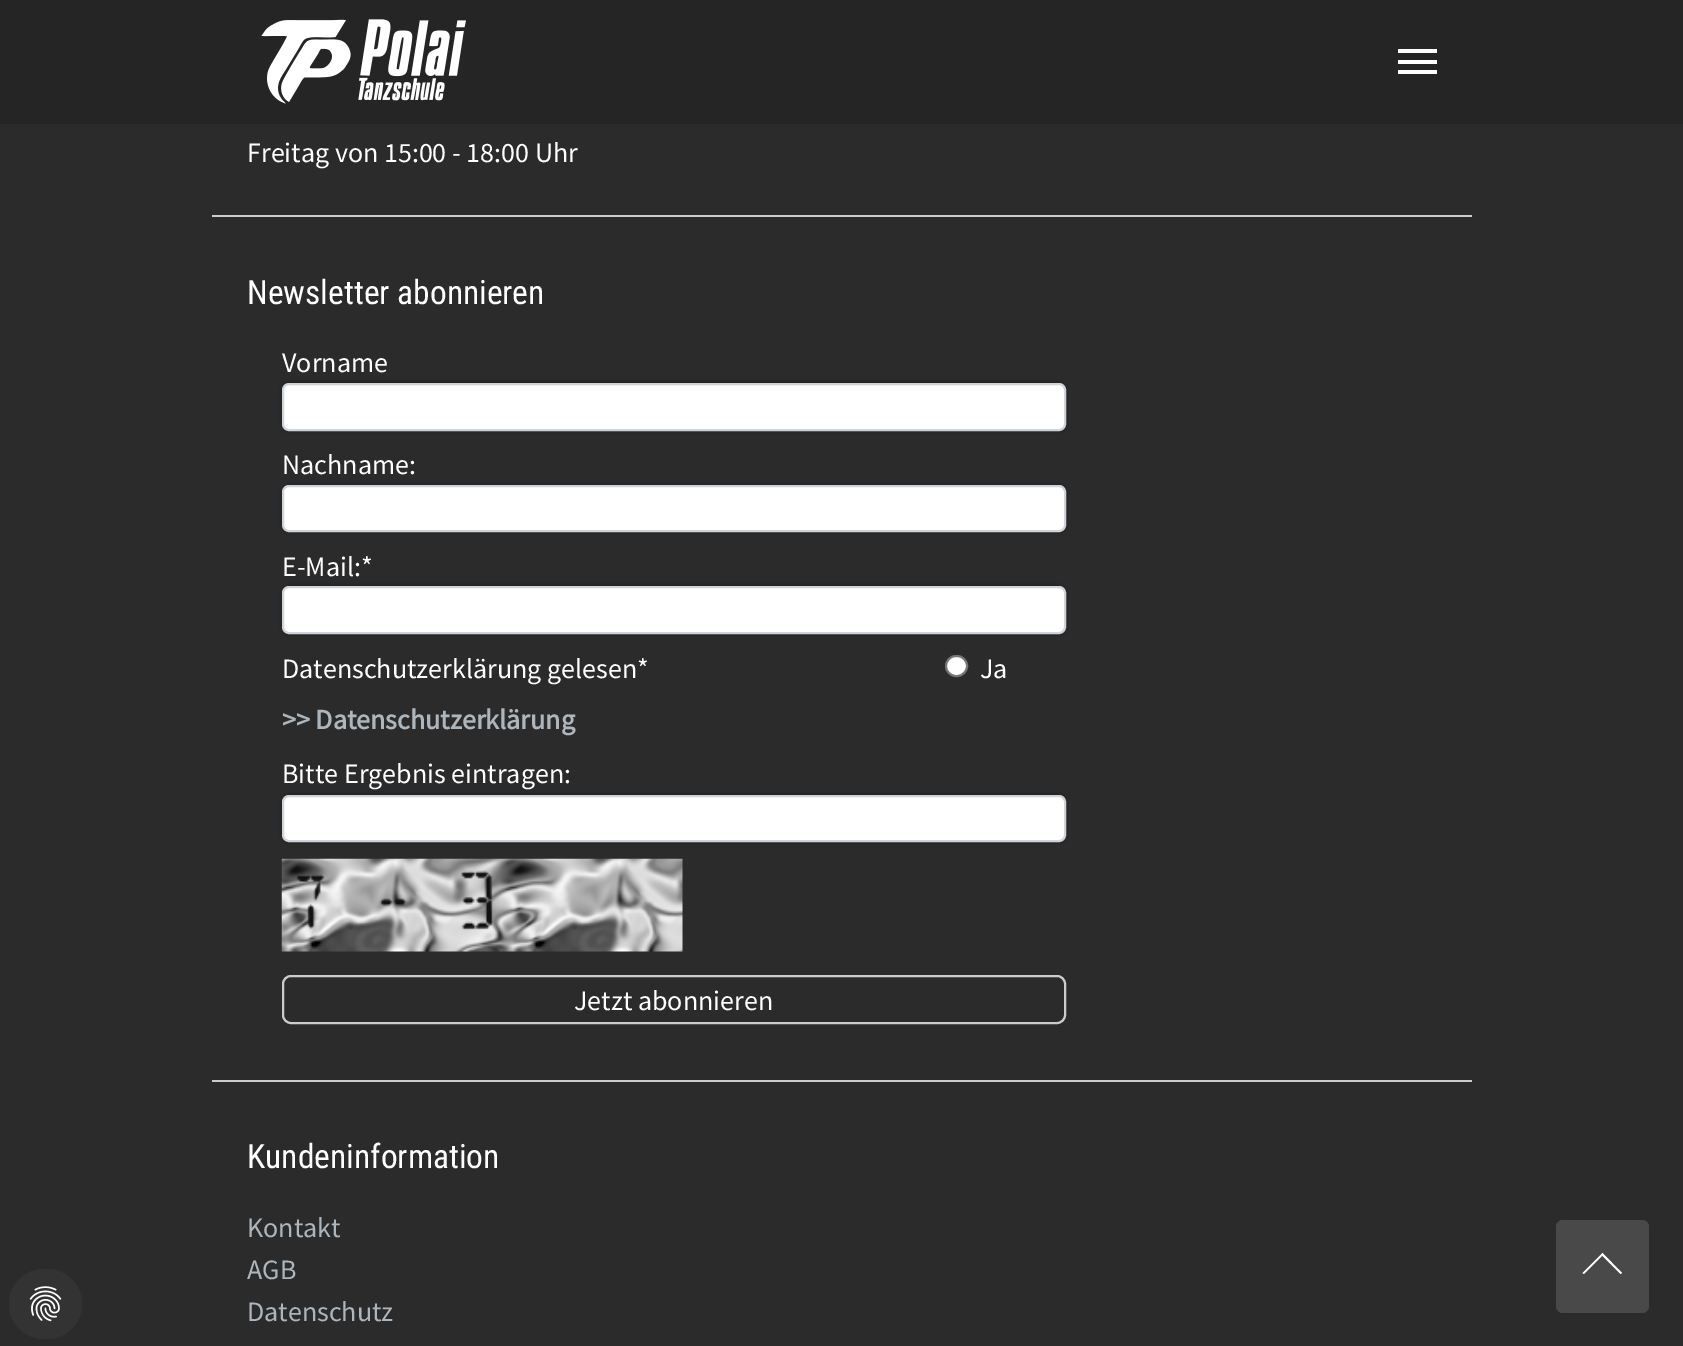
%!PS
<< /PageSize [1683 1346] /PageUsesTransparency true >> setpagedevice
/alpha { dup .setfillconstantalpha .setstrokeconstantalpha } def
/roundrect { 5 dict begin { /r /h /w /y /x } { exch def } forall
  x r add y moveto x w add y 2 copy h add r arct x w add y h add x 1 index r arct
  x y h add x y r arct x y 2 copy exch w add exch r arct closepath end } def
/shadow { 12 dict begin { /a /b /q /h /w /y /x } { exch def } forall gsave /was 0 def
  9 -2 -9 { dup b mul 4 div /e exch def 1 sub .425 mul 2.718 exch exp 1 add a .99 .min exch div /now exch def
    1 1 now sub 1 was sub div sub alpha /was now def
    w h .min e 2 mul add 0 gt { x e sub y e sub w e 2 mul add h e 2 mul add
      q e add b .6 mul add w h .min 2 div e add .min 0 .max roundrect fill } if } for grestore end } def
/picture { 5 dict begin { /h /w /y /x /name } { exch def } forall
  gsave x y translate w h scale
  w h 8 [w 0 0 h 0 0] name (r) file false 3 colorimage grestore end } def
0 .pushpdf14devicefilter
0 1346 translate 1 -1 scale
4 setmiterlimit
0.169 setgray
0 0 1683 1346 rectfill
0.2 setgray
9 1269 73 70 35 roundrect fill
(img1.rgb) 29 1286 33 36 picture
0.15 alpha
0 setgray
newpath 0 122 moveto 0 124 lineto 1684 124 lineto 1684 2 lineto 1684 122 lineto closepath fill
1 alpha
0.145 setgray
0 0 1683 122 rectfill
(img2.rgb) 261 19 205 85 picture
1 setgray
1398 60 39 4 rectfill
1398 49 39 4 rectfill
1398 70 39 4 rectfill
0.8 setgray
212 215 1260 2 rectfill
/SourceSansPro-Regular [28 0 0 -28 0 0] selectfont
1 setgray
247 162 moveto (Freitag von 15:00 - 18:00 Uhr) show
0.8 setgray
212 1080 1260 2 rectfill
/RobotoCondensed-Regular [33.5 0 0 -33.5 0 0] selectfont
1 setgray
247 304 moveto (Newsletter abonnieren) show
/SourceSansPro-Regular [28 0 0 -28 0 0] selectfont
282 372 moveto (Vorname) show
0 setgray
282 383 784 48 7 2.5 0.3 shadow
1 setgray
283 384 782 46 6 roundrect gsave fill grestore
0.808 0.831 0.855 setrgbcolor
2 setlinewidth
stroke
1 setgray
282 474 moveto (Nachname:) show
0 setgray
282 485 784 47 7 2.5 0.3 shadow
1 setgray
283 486 782 45 6 roundrect gsave fill grestore
0.808 0.831 0.855 setrgbcolor
stroke
1 setgray
282 576 moveto (E-Mail:*) show
0 setgray
282 586 784 48 7 2.5 0.3 shadow
1 setgray
283 587 782 46 6 roundrect gsave fill grestore
0.808 0.831 0.855 setrgbcolor
stroke
1 setgray
282 678 moveto (Datenschutzerklärung gelesen*) show
946 656 21 20 10 roundrect gsave fill grestore
0.463 setgray
stroke
1 setgray
980 678 moveto (Ja) show
/SourceSansPro-Bold [28 0 0 -28 0 0] selectfont
0.678 0.71 0.741 setrgbcolor
282 729 moveto (>> Datenschutzerklärung) show
/SourceSansPro-Regular [28 0 0 -28 0 0] selectfont
1 setgray
282 783 moveto (Bitte Ergebnis eintragen:) show
0 setgray
282 795 784 47 7 2.5 0.3 shadow
1 setgray
283 796 782 45 6 roundrect gsave fill grestore
0.808 0.831 0.855 setrgbcolor
stroke
(img3.rgb) 281 858 402 94 picture
0.8 setgray
283 976 782 47 8 roundrect stroke
1 setgray
574 1010 moveto (Jetzt abonnieren) show
/RobotoCondensed-Regular [33.5 0 0 -33.5 0 0] selectfont
247 1168 moveto (Kundeninformation) show
/SourceSansPro-Regular [28 0 0 -28 0 0] selectfont
0.678 0.71 0.741 setrgbcolor
247 1237 moveto (Kontakt) show
247 1279 moveto (AGB) show
247 1321 moveto (Datenschutz) show
0.286 setgray
1556 1220 93 93 7 roundrect fill
1 setgray
newpath 1602.5 1253 moveto 1622 1273 lineto 1620.5 1274 lineto 1601 1254.5 lineto closepath fill
newpath 1602.5 1253 moveto 1603.5 1254.5 lineto 1584 1274 lineto 1582.5 1273 lineto closepath fill
.poppdf14devicefilter showpage
